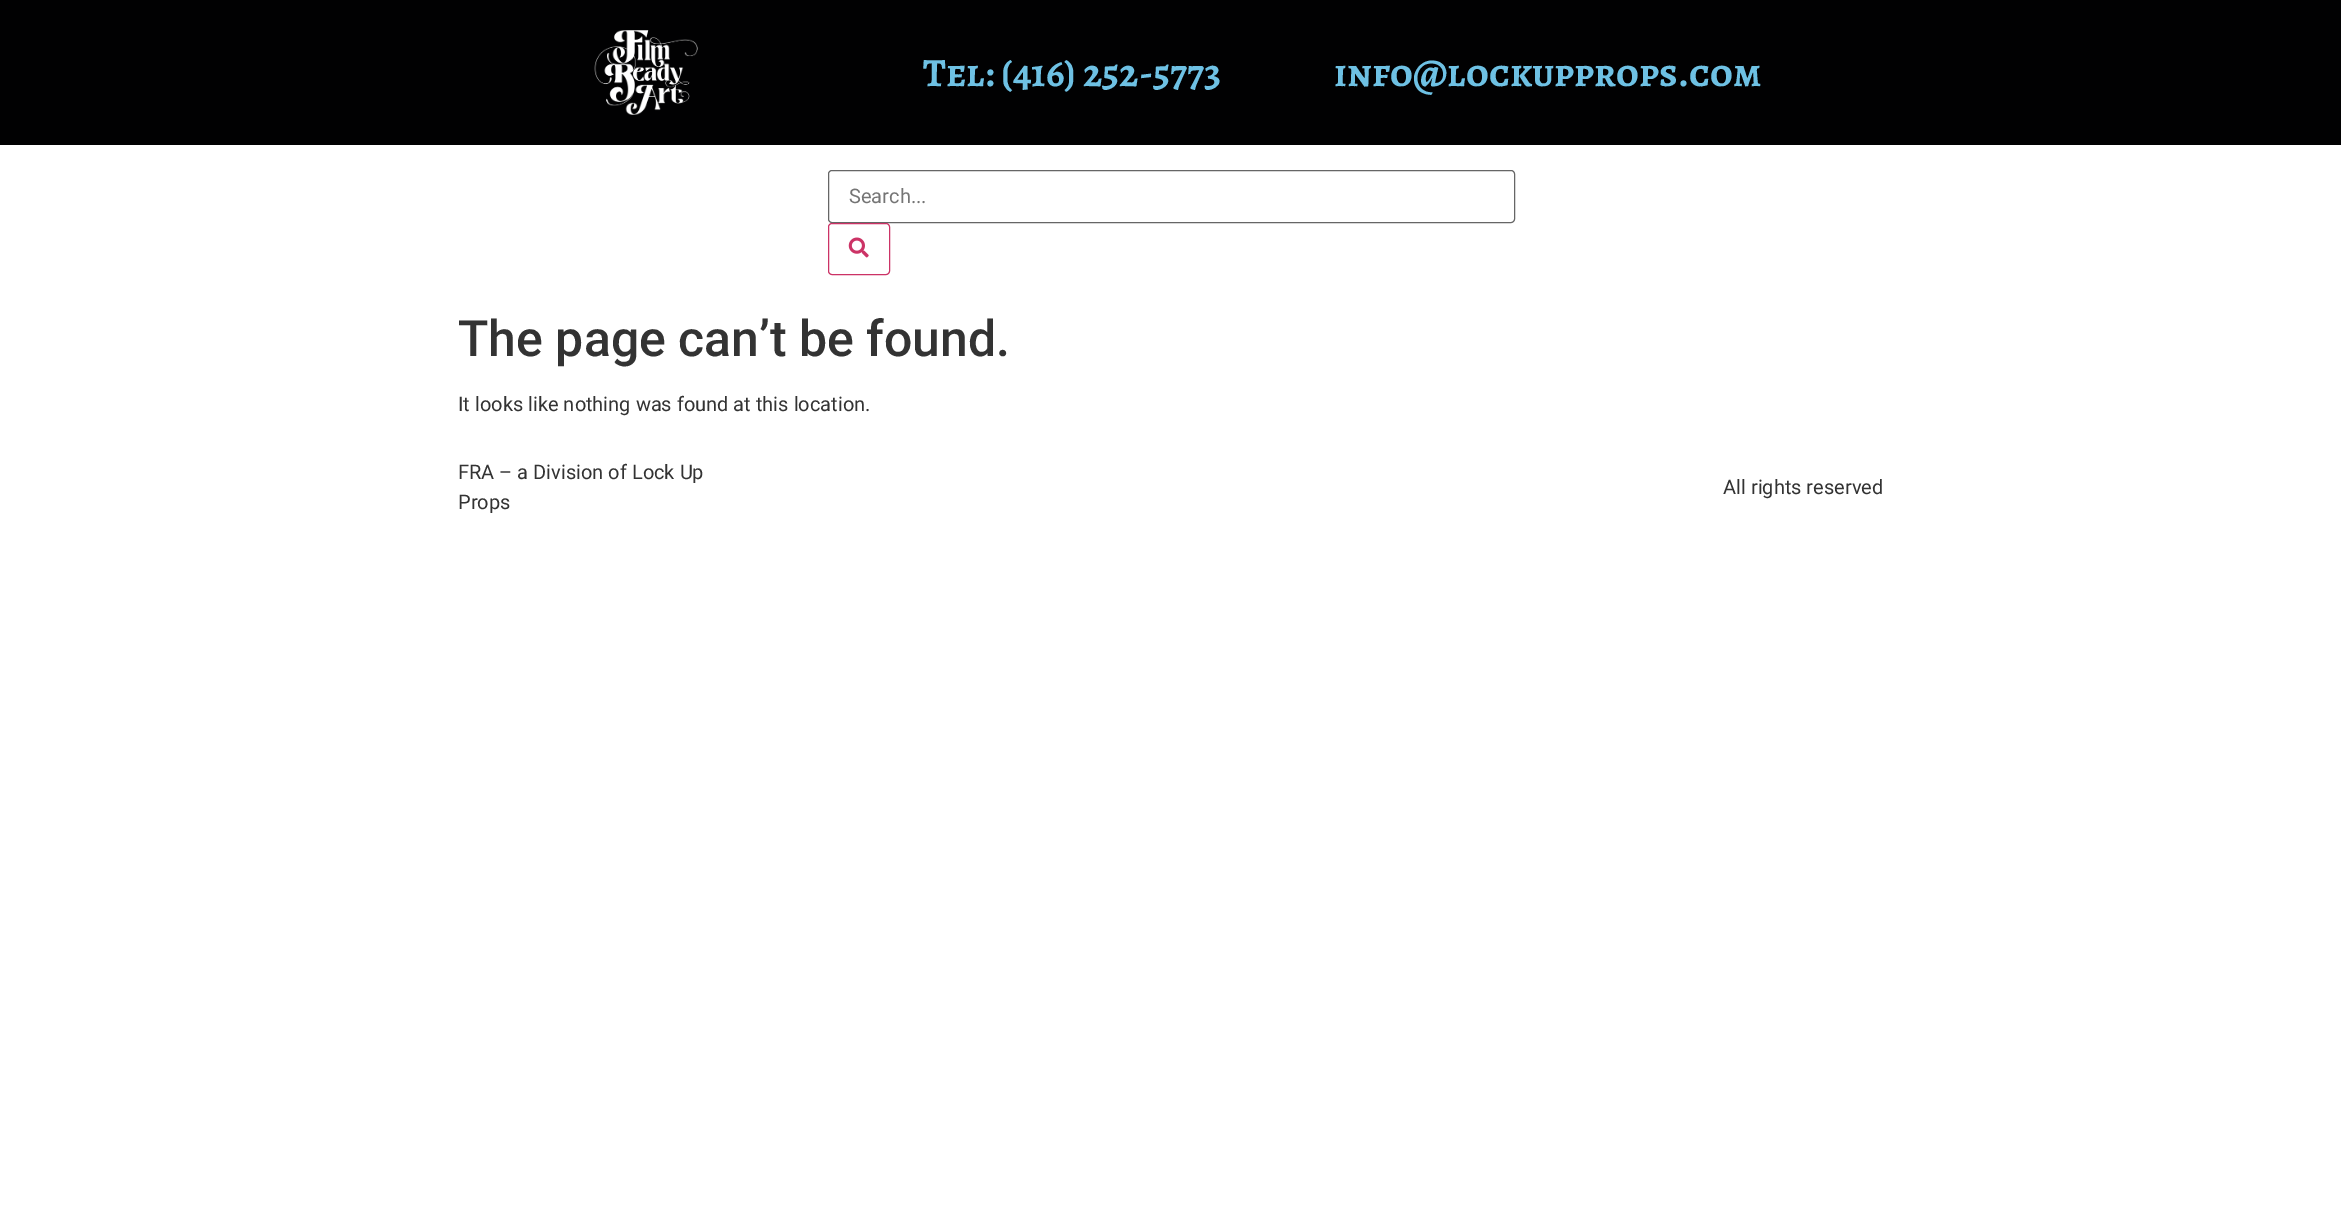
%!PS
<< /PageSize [2341 1212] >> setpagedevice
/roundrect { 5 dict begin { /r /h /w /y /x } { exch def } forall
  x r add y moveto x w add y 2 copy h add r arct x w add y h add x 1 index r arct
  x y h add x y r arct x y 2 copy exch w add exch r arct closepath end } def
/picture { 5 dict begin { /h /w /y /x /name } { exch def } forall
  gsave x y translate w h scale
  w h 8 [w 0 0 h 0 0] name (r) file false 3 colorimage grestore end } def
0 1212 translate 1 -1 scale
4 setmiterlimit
1 setgray
0 0 2341 1212 rectfill
0.004 0.004 0.008 setrgbcolor
0 0 2341 145 rectfill
(img1.rgb) 594 30 104 85 picture
/AlegreyaSC-Bold [40 0 0 -40 0 0] selectfont
0.431 0.757 0.894 setrgbcolor
923 86 moveto (Tel: \(416\) 252-5773) show
1334 86 moveto (info@lockupprops.com) show
0.4 setgray
828.5 170.5 686 52 3.5 roundrect stroke
/Roboto-Regular [20 0 0 -20 0 0] selectfont
0.459 setgray
849 203 moveto (Search...) show
0.8 0.2 0.4 setrgbcolor
828.5 223.5 61 51 3.5 roundrect stroke
(img2.rgb) 848 237 21 21 picture
/Roboto-Medium [50 0 0 -50 0 0] selectfont
0.2 setgray
458 356 moveto (The page can’t be found.) show
/Roboto-Regular [20 0 0 -20 0 0] selectfont
458 411 moveto (It looks like nothing was found at this location.) show
458 479 moveto (FRA – a Division of Lock Up) show
458 509 moveto (Props) show
1723 494 moveto (All rights reserved) show
showpage
